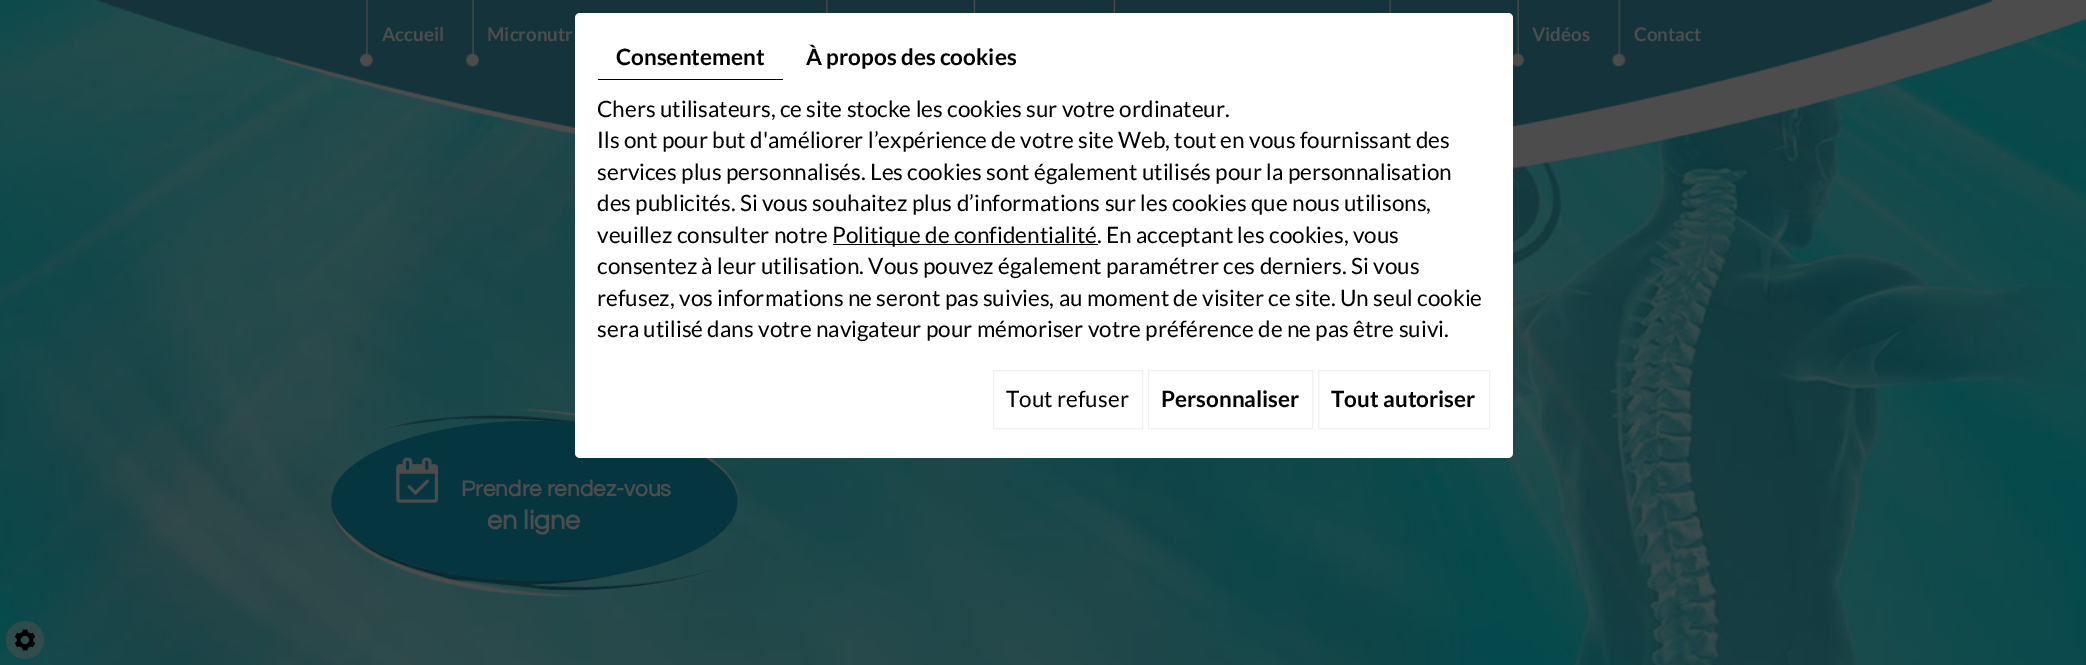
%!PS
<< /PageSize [2086 665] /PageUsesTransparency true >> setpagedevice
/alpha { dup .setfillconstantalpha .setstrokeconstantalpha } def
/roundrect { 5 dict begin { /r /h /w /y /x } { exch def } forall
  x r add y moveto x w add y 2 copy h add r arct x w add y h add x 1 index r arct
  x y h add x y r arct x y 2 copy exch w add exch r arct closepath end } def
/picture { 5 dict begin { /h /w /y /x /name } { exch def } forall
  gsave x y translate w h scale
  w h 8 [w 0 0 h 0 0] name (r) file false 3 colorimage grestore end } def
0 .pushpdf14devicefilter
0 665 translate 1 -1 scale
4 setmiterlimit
1 setgray
0 0 2086 665 rectfill
(img1.rgb) 0 0 2086 665 picture
(img2.rgb) 96 0 1990 169 picture
(img3.rgb) 826 0 2 13 picture
(img4.rgb) 973 0 3 13 picture
(img4.rgb) 1113 0 3 13 picture
(img5.rgb) 1389 0 3 13 picture
(img6.rgb) 360 0 13 67 picture
/Lato-Bold [18.75 0 0 -18.75 0 0] selectfont
0.302 setgray
382 41 moveto (Accueil) show
(img7.rgb) 466 0 13 67 picture
487 41 moveto (Micronutr) show
(img8.rgb) 1513 0 11 67 picture
1532 41 moveto (Vidéos) show
(img9.rgb) 1612 0 14 67 picture
1634 41 moveto (Contact) show
(img10.rgb) 331 408 407 189 picture
0.02 0.212 0.251 setrgbcolor
newpath 534.5 421 moveto 646.5 421 737.5 457 737.5 501 curveto 737.5 545 646.5 581 534.5 581 curveto 422.5 581 331.5 545 331.5 501 curveto 331.5 457 422.5 421 534.5 421 curveto closepath fill
(img11.rgb) 396 457 43 46 picture
/Questrial-Bold [22.5 0 0 -22.5 0 0] selectfont
0.302 setgray
461 496 moveto (Prendre rendez-vous) show
/Questrial-Bold [27 0 0 -27 0 0] selectfont
487 529 moveto (en ligne) show
1 setgray
575 13 938 445 5 roundrect fill
0 setgray
598 79 185 1 rectfill
/Lato-Bold [22.5 0 0 -22.5 0 0] selectfont
616 65 moveto (Consentement) show
806 65 moveto (À propos des cookies) show
/Lato-Regular [22.5 0 0 -22.5 0 0] selectfont
597 117 moveto (Chers utilisateurs, ce site stocke les cookies sur votre ordinateur.) show
597 148 moveto (Ils ont pour but d'améliorer l’expérience de votre site Web, tout en vous fournissant des) show
597 180 moveto (services plus personnalisés. Les cookies sont également utilisés pour la personnalisation) show
597 211 moveto (des publicités. Si vous souhaitez plus d’informations sur les cookies que nous utilisons,) show
597 243 moveto (veuillez consulter notre) show
833 244 265 1 rectfill
832 243 moveto (Politique de confidentialité. En acceptant les cookies, vous) show
597 274 moveto (consentez à leur utilisation. Vous pouvez également paramétrer ces derniers. Si vous) show
597 306 moveto (refusez, vos informations ne seront pas suivies, au moment de visiter ce site. Un seul cookie) show
597 337 moveto (sera utilisé dans votre navigateur pour mémoriser votre préférence de ne pas être suivi.) show
0.941 setgray
993.5 370.5 149 58 rectstroke
0 setgray
1006 407 moveto (Tout refuser) show
0.941 setgray
1148.5 370.5 164 58 rectstroke
/Lato-Bold [22.5 0 0 -22.5 0 0] selectfont
0 setgray
1161 407 moveto (Personnaliser) show
0.941 setgray
1318.5 370.5 171 58 rectstroke
0 setgray
1331 407 moveto (Tout autoriser) show
0.54 alpha
0.302 setgray
newpath 25 640 19 0 360 arc closepath fill
1 alpha
(img12.rgb) 14 629 22 22 picture
.poppdf14devicefilter showpage
